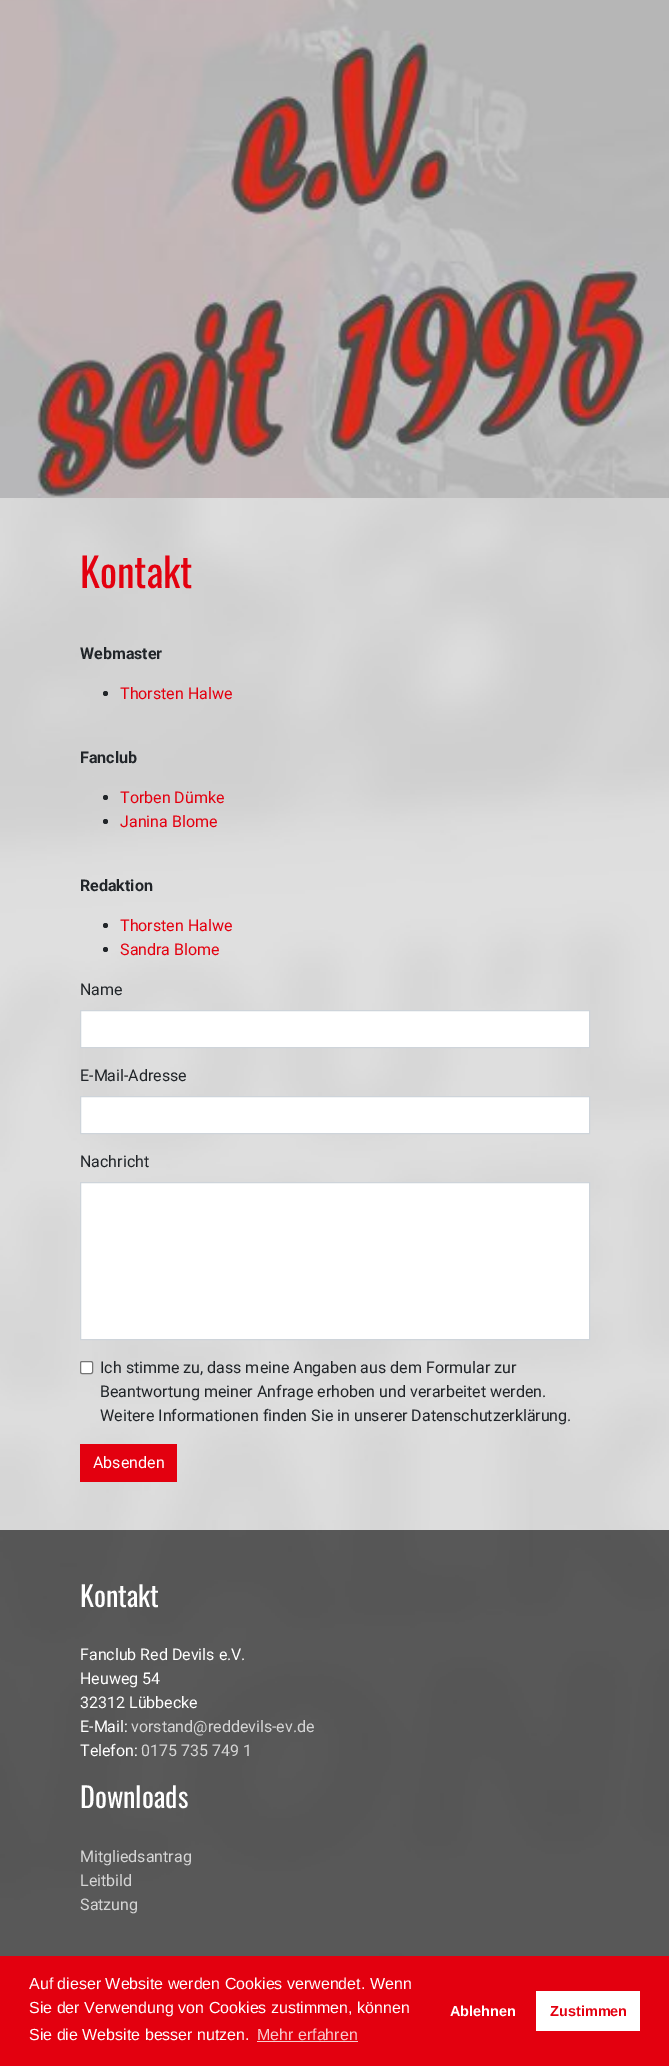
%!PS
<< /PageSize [669 2066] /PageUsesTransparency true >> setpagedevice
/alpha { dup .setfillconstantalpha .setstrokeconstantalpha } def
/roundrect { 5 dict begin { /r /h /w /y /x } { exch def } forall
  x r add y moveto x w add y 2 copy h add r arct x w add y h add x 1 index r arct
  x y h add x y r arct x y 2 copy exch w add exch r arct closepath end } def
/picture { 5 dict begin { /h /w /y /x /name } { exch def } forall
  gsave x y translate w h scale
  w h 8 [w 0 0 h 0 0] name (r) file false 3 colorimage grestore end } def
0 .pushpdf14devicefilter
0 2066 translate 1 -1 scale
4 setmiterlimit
1 setgray
0 0 669 2066 rectfill
(img1.rgb) 0 498 669 1458 picture
(img2.rgb) 0 0 669 498 picture
/Oswald-Regular [40 0 0 -40 0 0] selectfont
0.89 0 0.059 setrgbcolor
80 588 moveto (Kontakt) show
/Roboto-Bold [16 0 0 -16 0 0] selectfont
0.129 0.145 0.161 setrgbcolor
80 659 moveto (Webmaster) show
newpath 105.5 693.5 2.5 0 360 arc closepath fill
/Roboto-Regular [16 0 0 -16 0 0] selectfont
0.89 0 0.059 setrgbcolor
120 699 moveto (Thorsten Halwe) show
/Roboto-Bold [16 0 0 -16 0 0] selectfont
0.129 0.145 0.161 setrgbcolor
80 763 moveto (Fanclub) show
newpath 105.5 797.5 2.5 0 360 arc closepath fill
/Roboto-Regular [16 0 0 -16 0 0] selectfont
0.89 0 0.059 setrgbcolor
120 803 moveto (Torben Dümke) show
0.129 0.145 0.161 setrgbcolor
newpath 105.5 821.5 2.5 0 360 arc closepath fill
0.89 0 0.059 setrgbcolor
120 827 moveto (Janina Blome) show
/Roboto-Bold [16 0 0 -16 0 0] selectfont
0.129 0.145 0.161 setrgbcolor
80 891 moveto (Redaktion) show
newpath 105.5 925.5 2.5 0 360 arc closepath fill
/Roboto-Regular [16 0 0 -16 0 0] selectfont
0.89 0 0.059 setrgbcolor
120 931 moveto (Thorsten Halwe) show
0.129 0.145 0.161 setrgbcolor
newpath 105.5 949.5 2.5 0 360 arc closepath fill
0.89 0 0.059 setrgbcolor
120 955 moveto (Sandra Blome) show
0.129 0.145 0.161 setrgbcolor
80 995 moveto (Name) show
1 setgray
newpath 80.5 1010.5 moveto 589.5 1010.5 lineto 589.5 1047.5 lineto 80.5 1047.5 lineto closepath gsave fill grestore
0.808 0.831 0.855 setrgbcolor
stroke
0.129 0.145 0.161 setrgbcolor
80 1081 moveto (E-Mail-Adresse) show
1 setgray
newpath 80.5 1096.5 moveto 589.5 1096.5 lineto 589.5 1133.5 lineto 80.5 1133.5 lineto closepath gsave fill grestore
0.808 0.831 0.855 setrgbcolor
stroke
0.129 0.145 0.161 setrgbcolor
80 1167 moveto (Nachricht) show
1 setgray
newpath 80.5 1182.5 moveto 589.5 1182.5 lineto 589.5 1339.5 lineto 80.5 1339.5 lineto closepath gsave fill grestore
0.808 0.831 0.855 setrgbcolor
stroke
1 setgray
80.5 1361.5 12 12 1.5 roundrect gsave fill grestore
0.463 setgray
stroke
0.129 0.145 0.161 setrgbcolor
100 1373 moveto (Ich stimme zu, dass meine Angaben aus dem Formular zur) show
100 1397 moveto (Beantwortung meiner Anfrage erhoben und verarbeitet werden.) show
100 1421 moveto (Weitere Informationen finden Sie in unserer Datenschutzerklärung.) show
0.89 0 0.059 setrgbcolor
80 1444 97 38 rectfill
1 setgray
93 1468 moveto (Absenden) show
0.6 alpha
0 setgray
0 1530 669 426 rectfill
/Oswald-Regular [28 0 0 -28 0 0] selectfont
1 alpha
1 setgray
80 1607 moveto (Kontakt) show
/Roboto-Regular [16 0 0 -16 0 0] selectfont
80 1660 moveto (Fanclub Red Devils e.V.) show
80 1684 moveto (Heuweg 54) show
80 1708 moveto (32312 Lübbecke) show
80 1732 moveto (E-Mail:) show
0.835 setgray
131 1732 moveto (vorstand@reddevils-ev.de) show
1 setgray
80 1756 moveto (Telefon:) show
0.835 setgray
141 1756 moveto (0175 735 749 1) show
/Oswald-Regular [28 0 0 -28 0 0] selectfont
1 setgray
80 1808 moveto (Downloads) show
/Roboto-Regular [16 0 0 -16 0 0] selectfont
0.835 setgray
80 1862 moveto (Mitgliedsantrag) show
80 1886 moveto (Leitbild) show
80 1910 moveto (Satzung) show
0.89 0 0.059 setrgbcolor
0 1956 669 110 rectfill
/LiberationSans-Regular [16 0 0 -16 0 0] selectfont
1 setgray
29 1989 moveto (Auf dieser Website werden Cookies verwendet. Wenn) show
29 2013 moveto (Sie der Verwendung von Cookies zustimmen, können) show
29 2040 moveto (Sie die Website besser nutzen.) show
0.976 0.8 0.812 setrgbcolor
257 2040 moveto (Mehr erfahren) show
257 2041 101 1 rectfill
/LiberationSans-Bold [14.5 0 0 -14.5 0 0] selectfont
1 setgray
450 2016 moveto (Ablehnen) show
536 1991 104 40 rectfill
0.89 0 0.059 setrgbcolor
550 2016 moveto (Zustimmen) show
.poppdf14devicefilter showpage
